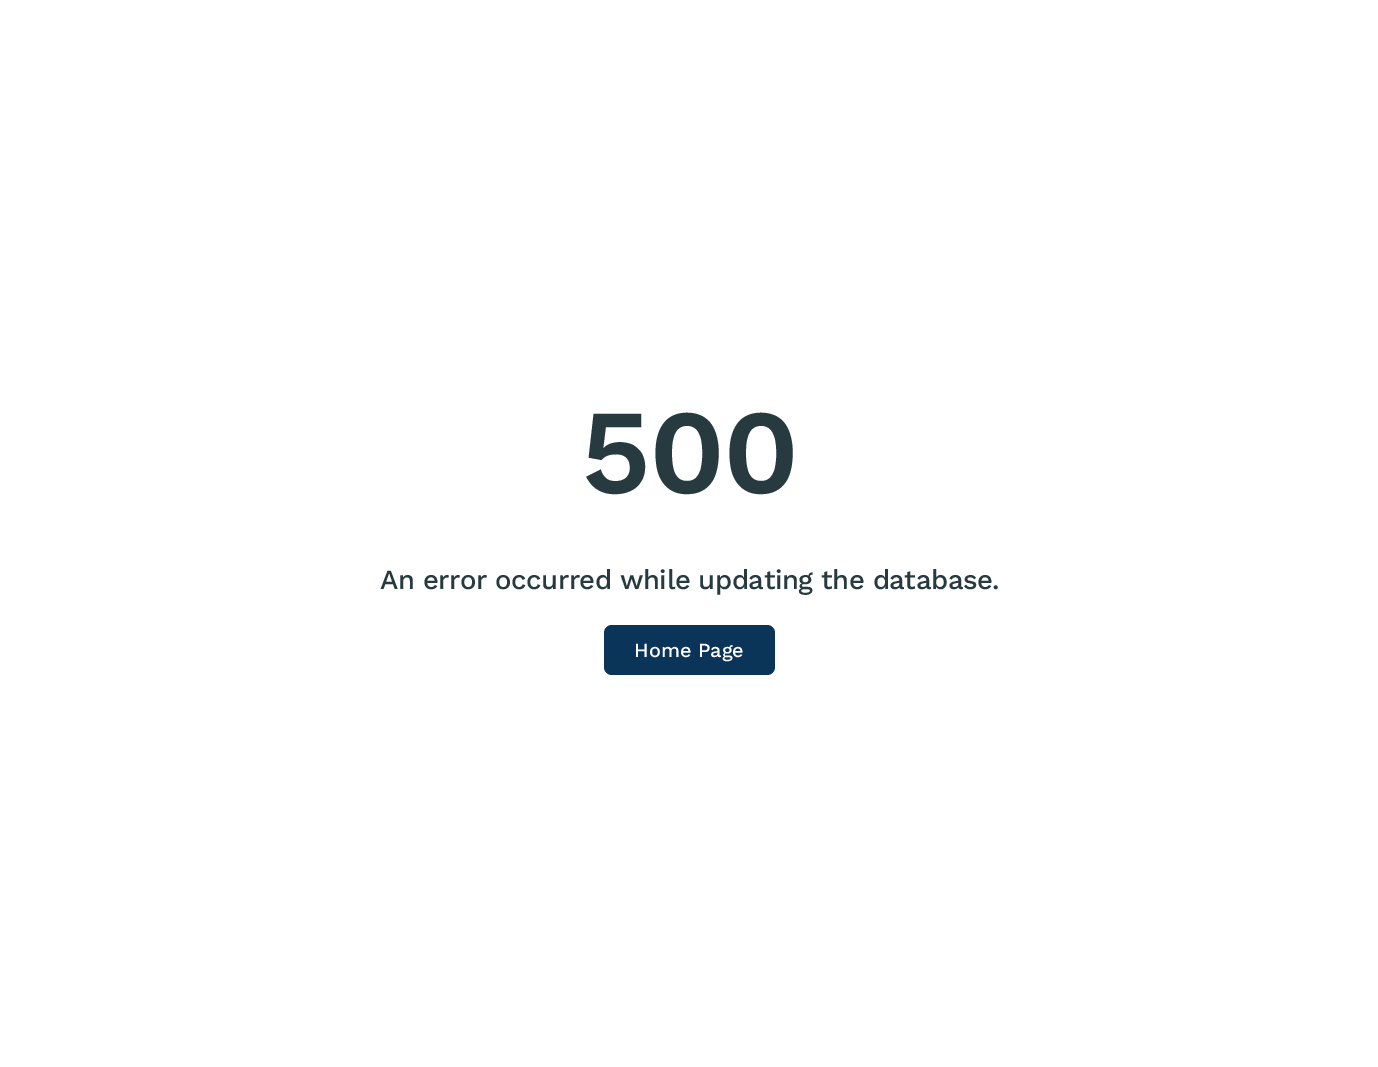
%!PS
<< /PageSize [1378 1067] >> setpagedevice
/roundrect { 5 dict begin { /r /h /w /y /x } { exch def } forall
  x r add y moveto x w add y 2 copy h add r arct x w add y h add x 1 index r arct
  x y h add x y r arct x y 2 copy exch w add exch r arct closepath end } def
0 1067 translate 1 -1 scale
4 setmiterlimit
1 setgray
0 0 1378 1067 rectfill
/WorkSans-SemiBold [120 0 0 -120 0 0] selectfont
0.149 0.227 0.251 setrgbcolor
581 493 moveto -2 0 (500) ashow
/WorkSans-Medium [27.5 0 0 -27.5 0 0] selectfont
380 589 moveto -0.5 0 (An error occurred while updating the database.) ashow
0.039 0.204 0.345 setrgbcolor
604 625 171 50 8 roundrect fill
/WorkSans-Medium [20 0 0 -20 0 0] selectfont
1 setgray
634 657 moveto (Home Page) show
showpage
